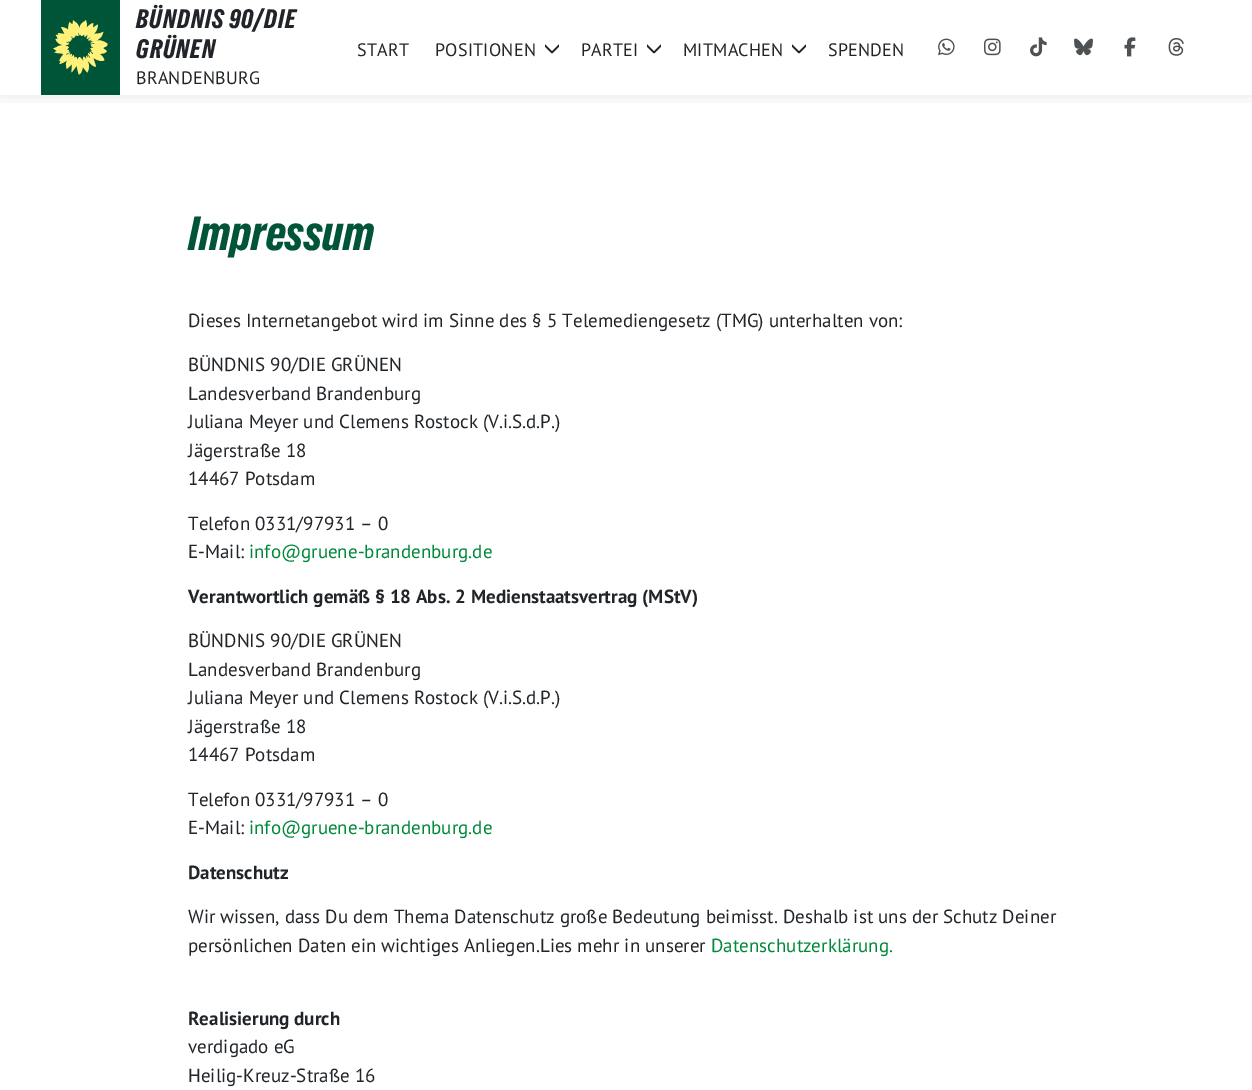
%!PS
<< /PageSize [1252 1090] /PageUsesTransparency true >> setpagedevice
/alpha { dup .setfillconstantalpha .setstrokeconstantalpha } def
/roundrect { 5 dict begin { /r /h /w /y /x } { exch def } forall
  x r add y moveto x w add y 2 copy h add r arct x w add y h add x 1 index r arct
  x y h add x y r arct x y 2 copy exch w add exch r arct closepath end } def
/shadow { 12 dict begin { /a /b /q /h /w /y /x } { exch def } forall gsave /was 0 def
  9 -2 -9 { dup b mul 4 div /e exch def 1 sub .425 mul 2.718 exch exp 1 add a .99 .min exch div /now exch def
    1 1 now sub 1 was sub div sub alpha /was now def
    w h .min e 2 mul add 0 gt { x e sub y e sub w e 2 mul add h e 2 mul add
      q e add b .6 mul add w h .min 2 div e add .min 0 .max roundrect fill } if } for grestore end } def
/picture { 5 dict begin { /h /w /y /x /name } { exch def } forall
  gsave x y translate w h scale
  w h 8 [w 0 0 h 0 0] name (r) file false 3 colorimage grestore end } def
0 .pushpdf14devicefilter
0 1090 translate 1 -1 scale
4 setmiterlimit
1 setgray
0 0 1252 1090 rectfill
gsave
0 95 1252 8 rectclip
0 setgray
0 1 1252 95 0 10 0.08 shadow
grestore
0 0.329 0.216 setrgbcolor
41 0 79 95 rectfill
(img1.rgb) 53 20 55 55 picture
/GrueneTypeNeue-Regular [25 0 0 -25 0 0] selectfont
0.129 0.145 0.161 setrgbcolor
136 28 moveto 1 0 (BÜNDNIS 90/DIE) ashow
136 58 moveto 1 0 (GRÜNEN) ashow
/PTSans-Regular [18 0 0 -18 0 0] selectfont
136 84 moveto 0.25 0 (BRANDENBURG) ashow
357 56 moveto 0.25 0 (START) ashow
435 56 moveto 0.25 0 (POSITIONEN) ashow
gsave
545 36 14 24 rectclip
1.5 setlinewidth
1 setlinecap
1 setlinejoin
newpath 543 43.5 moveto 552 52.5 lineto 561 43.5 lineto stroke
grestore
581 56 moveto 0.25 0 (PARTEI) ashow
gsave
647 36 14 24 rectclip
1.5 setlinewidth
1 setlinecap
1 setlinejoin
newpath 645 43.5 moveto 654 52.5 lineto 663 43.5 lineto stroke
grestore
683 56 moveto 0.25 0 (MITMACHEN) ashow
gsave
792 36 14 24 rectclip
1.5 setlinewidth
1 setlinecap
1 setlinejoin
newpath 790 43.5 moveto 799 52.5 lineto 808 43.5 lineto stroke
grestore
828 56 moveto 0.25 0 (SPENDEN) ashow
(img2.rgb) 938 38 17 18 picture
(img3.rgb) 984 38 17 18 picture
(img4.rgb) 1030 37 17 20 picture
(img5.rgb) 1074 38 19 18 picture
(img6.rgb) 1124 37 12 20 picture
(img7.rgb) 1168 38 16 18 picture
/GrueneTypeNeue-Regular [45 0 0 -45 0 0] selectfont
0 0.329 0.216 setrgbcolor
188 250 moveto (Impressum) show
/PTSans-Regular [19 0 0 -19 0 0] selectfont
0.129 0.145 0.161 setrgbcolor
188 327 moveto (Dieses Internetangebot wird im Sinne des § 5 Telemediengesetz \(TMG\) unterhalten von:) show
188 371 moveto (BÜNDNIS 90/DIE GRÜNEN) show
188 400 moveto (Landesverband Brandenburg) show
188 428 moveto (Juliana Meyer und Clemens Rostock \(V.i.S.d.P.\)) show
188 457 moveto (Jägerstraße 18) show
188 485 moveto (14467 Potsdam) show
188 530 moveto (Telefon 0331/97931 – 0) show
188 558 moveto (E-Mail:) show
0 0.537 0.224 setrgbcolor
249 558 moveto (info@gruene-brandenburg.de) show
/PTSans-Bold [19 0 0 -19 0 0] selectfont
0.129 0.145 0.161 setrgbcolor
188 603 moveto (Verantwortlich gemäß § 18 Abs. 2 Medienstaatsvertrag \(MStV\)) show
/PTSans-Regular [19 0 0 -19 0 0] selectfont
188 647 moveto (BÜNDNIS 90/DIE GRÜNEN) show
188 676 moveto (Landesverband Brandenburg) show
188 704 moveto (Juliana Meyer und Clemens Rostock \(V.i.S.d.P.\)) show
188 733 moveto (Jägerstraße 18) show
188 761 moveto (14467 Potsdam) show
188 806 moveto (Telefon 0331/97931 – 0) show
188 834 moveto (E-Mail:) show
0 0.537 0.224 setrgbcolor
249 834 moveto (info@gruene-brandenburg.de) show
/PTSans-Bold [19 0 0 -19 0 0] selectfont
0.129 0.145 0.161 setrgbcolor
188 879 moveto (Datenschutz) show
/PTSans-Regular [19 0 0 -19 0 0] selectfont
188 923 moveto (Wir wissen, dass Du dem Thema Datenschutz große Bedeutung beimisst. Deshalb ist uns der Schutz Deiner) show
188 952 moveto (persönlichen Daten ein wichtiges Anliegen.Lies mehr in unserer) show
0 0.537 0.224 setrgbcolor
711 952 moveto (Datenschutzerklärung.) show
/PTSans-Bold [19 0 0 -19 0 0] selectfont
0.129 0.145 0.161 setrgbcolor
188 1025 moveto (Realisierung durch) show
/PTSans-Regular [19 0 0 -19 0 0] selectfont
188 1053 moveto (verdigado eG) show
188 1082 moveto (Heilig-Kreuz-Straße 16) show
.poppdf14devicefilter showpage
